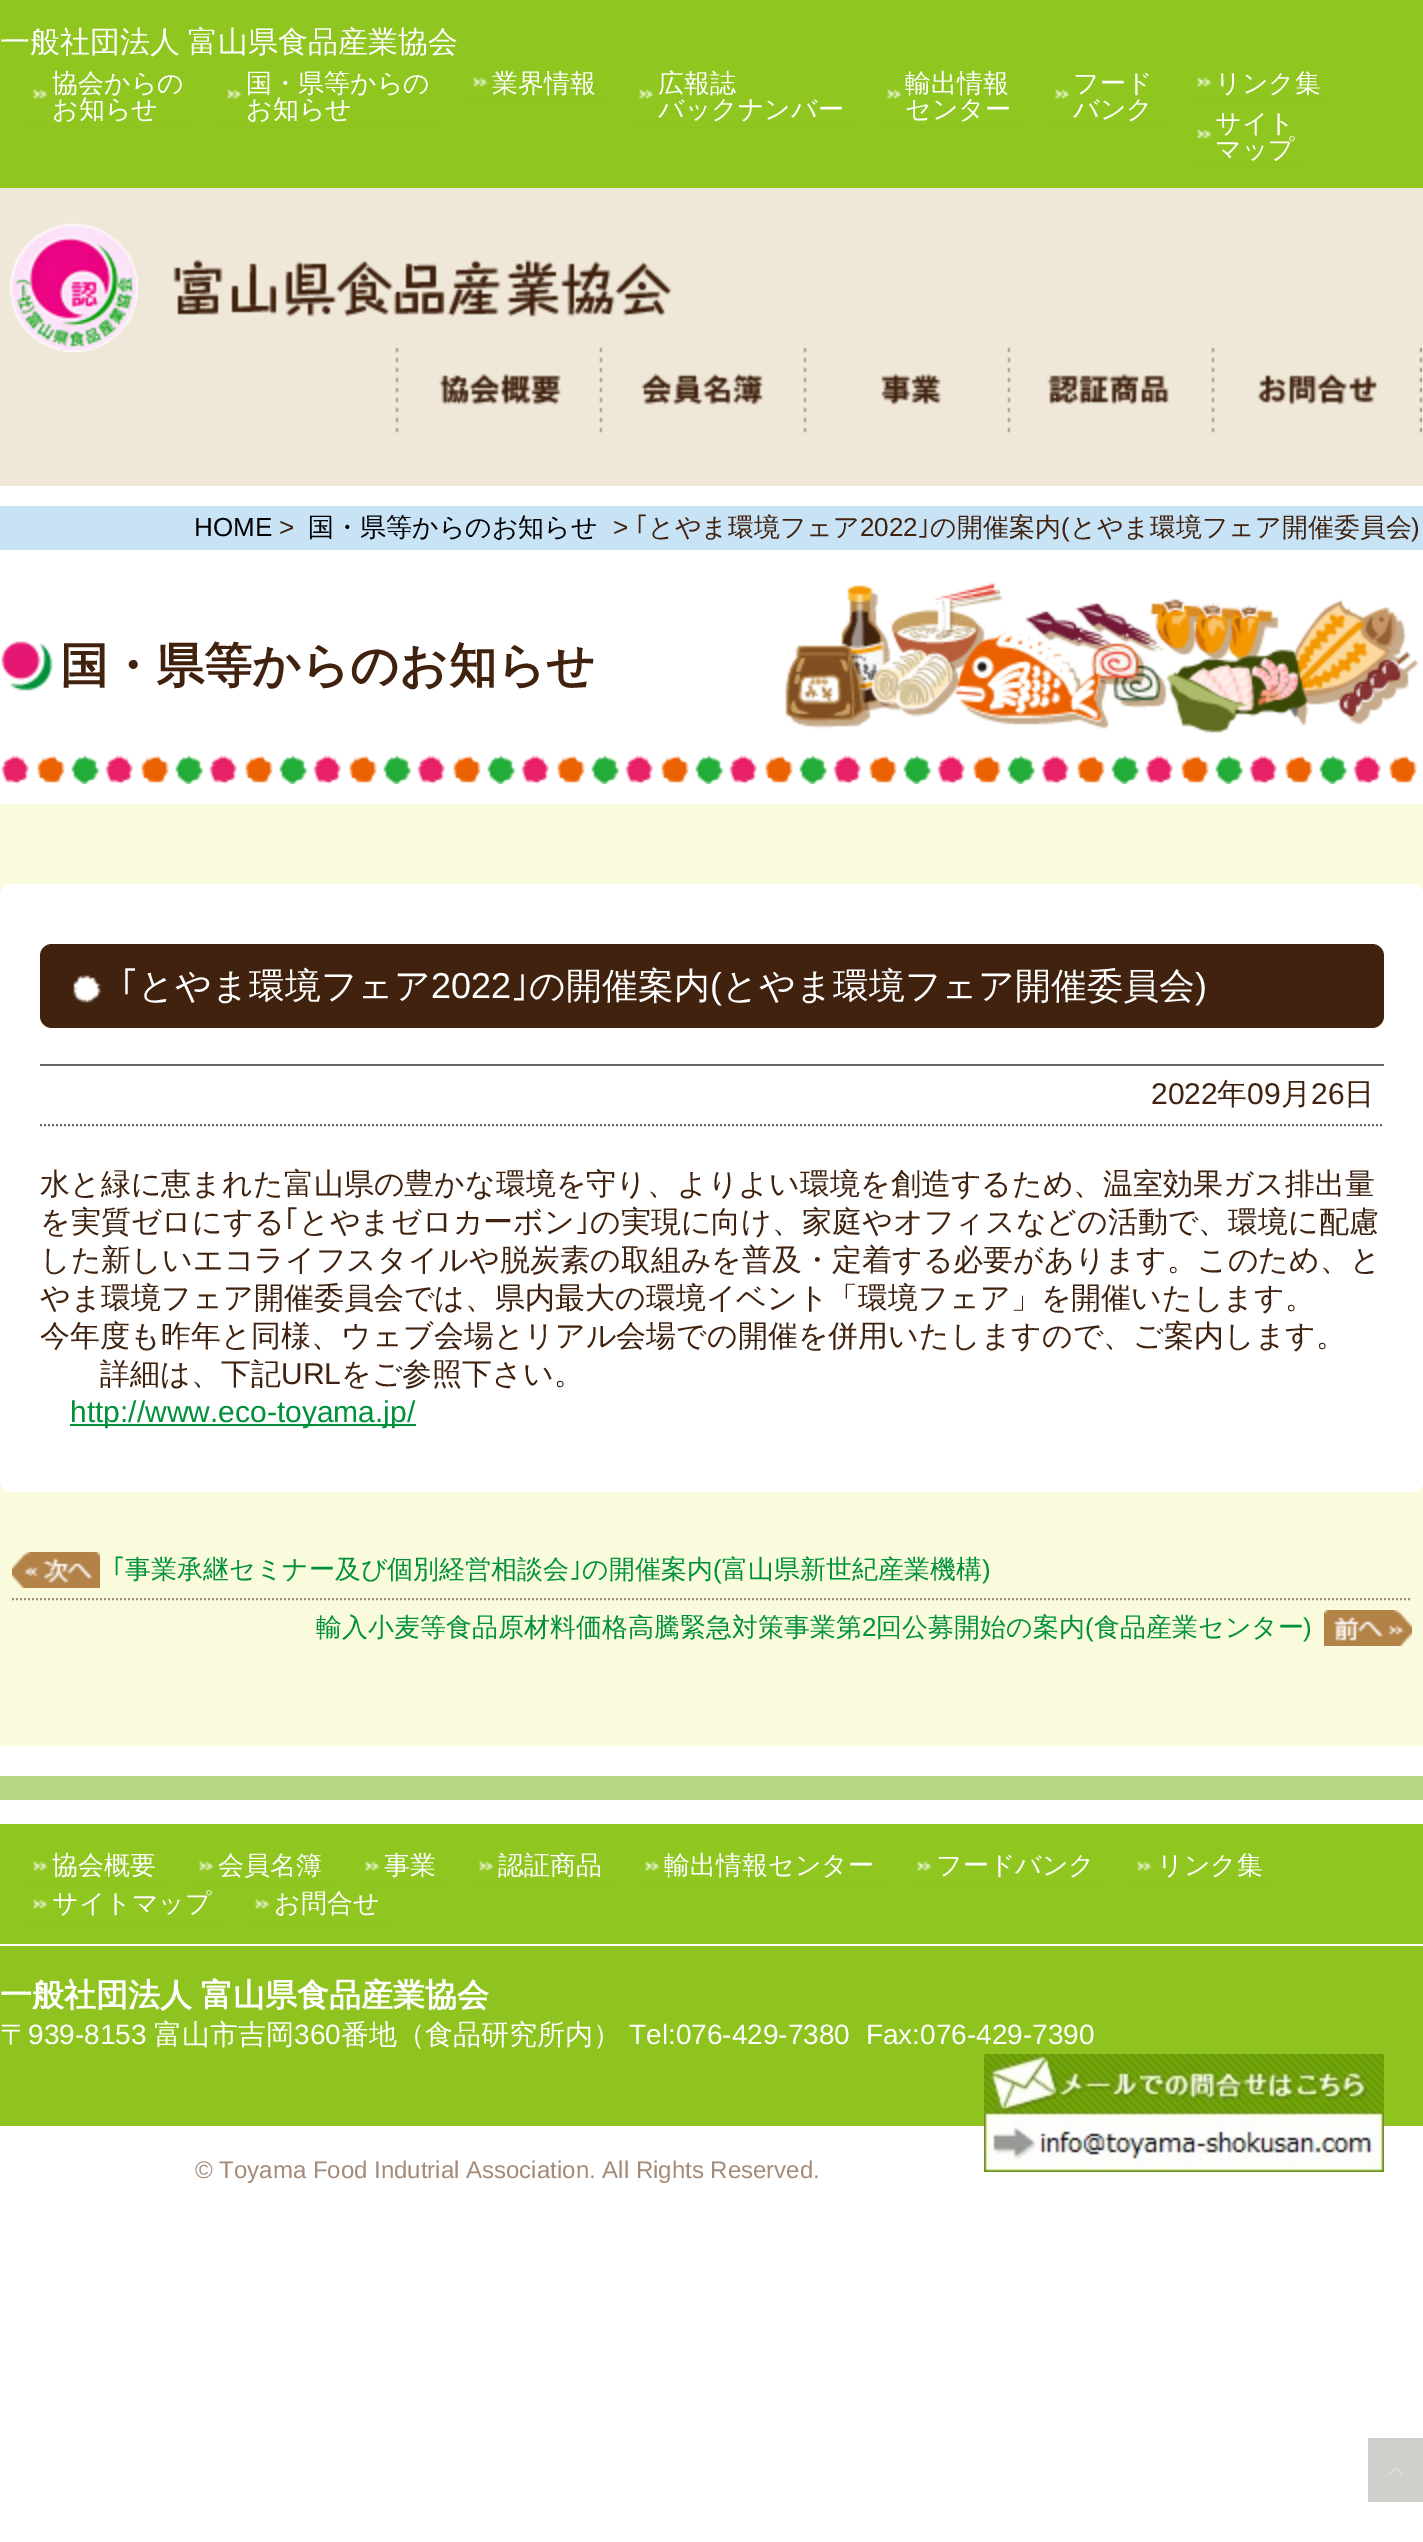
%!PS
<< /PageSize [1423 2542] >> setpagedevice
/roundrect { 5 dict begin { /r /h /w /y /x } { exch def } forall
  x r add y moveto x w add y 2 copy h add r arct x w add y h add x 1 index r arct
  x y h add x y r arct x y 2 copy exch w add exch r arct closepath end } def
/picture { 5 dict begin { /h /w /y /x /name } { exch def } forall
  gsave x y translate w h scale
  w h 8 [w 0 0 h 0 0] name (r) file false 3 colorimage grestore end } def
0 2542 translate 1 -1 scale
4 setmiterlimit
1 setgray
0 0 1423 2542 rectfill
0.561 0.776 0.122 setrgbcolor
0 0 1423 188 rectfill
/WenQuanYiZenHei-Medium [30 0 0 -30 0 0] selectfont
1 setgray
0 52 moveto (一般社団法人) show
188 52 moveto (富山県食品産業協会) show
(img1.rgb) 32 89 16 10 picture
0.561 0.765 0.122 setrgbcolor
26 126 168 2 rectfill
/WenQuanYiZenHei-Medium [26 0 0 -26 0 0] selectfont
1 setgray
52 92 moveto (協会からの) show
52 118 moveto (お知らせ) show
(img1.rgb) 226 89 16 10 picture
0.561 0.765 0.122 setrgbcolor
220 126 220 2 rectfill
1 setgray
246 92 moveto (国・県等からの) show
246 118 moveto (お知らせ) show
(img1.rgb) 472 77 16 10 picture
0.561 0.765 0.122 setrgbcolor
466 100 140 2 rectfill
1 setgray
492 92 moveto (業界情報) show
(img1.rgb) 638 89 16 10 picture
0.561 0.765 0.122 setrgbcolor
632 126 222 2 rectfill
1 setgray
658 92 moveto (広報誌) show
658 118 moveto (バックナンバー) show
(img1.rgb) 886 89 16 10 picture
0.561 0.765 0.122 setrgbcolor
880 126 142 2 rectfill
1 setgray
905 92 moveto (輸出情報) show
905 118 moveto (センター) show
(img1.rgb) 1054 89 16 10 picture
0.561 0.765 0.122 setrgbcolor
1048 126 116 2 rectfill
1 setgray
1073 92 moveto (フード) show
1073 118 moveto (バンク) show
(img1.rgb) 1196 77 16 10 picture
0.561 0.765 0.122 setrgbcolor
1190 100 140 2 rectfill
1 setgray
1215 92 moveto (リンク集) show
(img1.rgb) 1196 129 16 10 picture
0.561 0.765 0.122 setrgbcolor
1190 166 114 2 rectfill
1 setgray
1215 132 moveto (サイト) show
1215 158 moveto (マップ) show
0.937 0.906 0.847 setrgbcolor
0 188 1423 298 rectfill
(img2.rgb) 10 223 128 129 picture
(img3.rgb) 173 259 499 58 picture
(img4.rgb) 395 347 166 86 picture
(img5.rgb) 599 347 164 86 picture
(img6.rgb) 803 347 139 86 picture
(img7.rgb) 1007 347 162 86 picture
(img8.rgb) 1211 347 211 86 picture
0.788 0.89 0.965 setrgbcolor
0 506 1423 44 rectfill
/LiberationSans-Regular [26 0 0 -26 0 0] selectfont
0 setgray
194 536 moveto (HOME) show
0.251 0.133 0.059 setrgbcolor
279 536 moveto (>) show
/WenQuanYiZenHei-Medium [26 0 0 -26 0 0] selectfont
0 setgray
308 536 moveto (国・県等からのお知らせ) show
/LiberationSans-Regular [26 0 0 -26 0 0] selectfont
0.251 0.133 0.059 setrgbcolor
613 536 moveto (>) show
/IPAPGothic-Regular [26 0 0 -26 0 0] selectfont
635 536 moveto (｢) show
/WenQuanYiZenHei-Medium [26 0 0 -26 0 0] selectfont
648 536 moveto (とやま環境フェア) show
/LiberationSans-Regular [26 0 0 -26 0 0] selectfont
860 536 moveto (2022) show
/IPAPGothic-Regular [26 0 0 -26 0 0] selectfont
917 536 moveto (｣) show
/WenQuanYiZenHei-Medium [26 0 0 -26 0 0] selectfont
930 536 moveto (の開催案内) show
/LiberationSans-Regular [26 0 0 -26 0 0] selectfont
1061 536 moveto (\() show
/WenQuanYiZenHei-Medium [26 0 0 -26 0 0] selectfont
1070 536 moveto (とやま環境フェア開催委員会) show
/LiberationSans-Regular [26 0 0 -26 0 0] selectfont
1411 536 moveto (\)) show
0.98 0.98 0.867 setrgbcolor
0 804 1423 942 rectfill
(img9.rgb) 1 755 1416 29 picture
(img10.rgb) 785 583 634 150 picture
(img11.rgb) 1 641 52 50 picture
/WenQuanYiZenHei-Bold [48 0 0 -48 0 0] selectfont
0.251 0.133 0.059 setrgbcolor
60 682 moveto (国・県等からのお知らせ) show
1 setgray
0 884 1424 608 12 roundrect fill
0.251 0.133 0.059 setrgbcolor
40 944 1344 84 12 roundrect fill
(img12.rgb) 73 975 28 28 picture
/IPAPGothic-Regular [36 0 0 -36 0 0] selectfont
1 setgray
120 998 moveto (｢) show
/WenQuanYiZenHei-Medium [36 0 0 -36 0 0] selectfont
138 998 moveto (とやま環境フェア) show
/LiberationSans-Regular [36 0 0 -36 0 0] selectfont
431 998 moveto (2022) show
/IPAPGothic-Regular [36 0 0 -36 0 0] selectfont
511 998 moveto (｣) show
/WenQuanYiZenHei-Medium [36 0 0 -36 0 0] selectfont
529 998 moveto (の開催案内) show
/LiberationSans-Regular [36 0 0 -36 0 0] selectfont
710 998 moveto (\() show
/WenQuanYiZenHei-Medium [36 0 0 -36 0 0] selectfont
722 998 moveto (とやま環境フェア開催委員会) show
/LiberationSans-Regular [36 0 0 -36 0 0] selectfont
1195 998 moveto (\)) show
0.4 setgray
40 1064 1344 2 rectfill
2 setlinewidth
[2 2] 0 setdash
newpath 40 1125 moveto 1384 1125 lineto stroke
/LiberationSans-Regular [30 0 0 -30 0 0] selectfont
0.251 0.133 0.059 setrgbcolor
1151 1104 moveto (2022) show
/WenQuanYiZenHei-Medium [30 0 0 -30 0 0] selectfont
1217 1104 moveto (年) show
/LiberationSans-Regular [30 0 0 -30 0 0] selectfont
1247 1104 moveto (09) show
/WenQuanYiZenHei-Medium [30 0 0 -30 0 0] selectfont
1281 1104 moveto (月) show
/LiberationSans-Regular [30 0 0 -30 0 0] selectfont
1311 1104 moveto (26) show
/WenQuanYiZenHei-Medium [30 0 0 -30 0 0] selectfont
1344 1104 moveto (日) show
40 1194 moveto (水と緑に恵まれた富山県の豊かな環境を守り、よりよい環境を創造するため、温室効果ガス排出量) show
40 1232 moveto (を実質ゼロにする) show
/IPAPGothic-Regular [30 0 0 -30 0 0] selectfont
284 1232 moveto (｢) show
/WenQuanYiZenHei-Medium [30 0 0 -30 0 0] selectfont
299 1232 moveto (とやまゼロカーボン) show
/IPAPGothic-Regular [30 0 0 -30 0 0] selectfont
575 1232 moveto (｣) show
/WenQuanYiZenHei-Medium [30 0 0 -30 0 0] selectfont
590 1232 moveto (の実現に向け、家庭やオフィスなどの活動で、環境に配慮) show
40 1270 moveto (した新しいエコライフスタイルや脱炭素の取組みを普及・定着する必要があります。このため、と) show
40 1308 moveto (やま環境フェア開催委員会では、県内最大の環境イベント「環境フェア」を開催いたします。) show
40 1346 moveto (今年度も昨年と同様、ウェブ会場とリアル会場での開催を併用いたしますので、ご案内します。) show
100 1384 moveto (詳細は、下記) show
/LiberationSans-Regular [30 0 0 -30 0 0] selectfont
281 1384 moveto (URL) show
/WenQuanYiZenHei-Medium [30 0 0 -30 0 0] selectfont
341 1384 moveto (をご参照下さい。) show
0 0.569 0.227 setrgbcolor
70 1424 346 2 rectfill
/LiberationSans-Regular [30 0 0 -30 0 0] selectfont
70 1422 moveto (http://www.eco-toyama.jp/) show
(img13.rgb) 12 1552 88 36 picture
/IPAPGothic-Regular [26 0 0 -26 0 0] selectfont
112 1578 moveto (｢) show
/WenQuanYiZenHei-Medium [26 0 0 -26 0 0] selectfont
125 1578 moveto (事業承継セミナー及び個別経営相談会) show
/IPAPGothic-Regular [26 0 0 -26 0 0] selectfont
569 1578 moveto (｣) show
/WenQuanYiZenHei-Medium [26 0 0 -26 0 0] selectfont
582 1578 moveto (の開催案内) show
/LiberationSans-Regular [26 0 0 -26 0 0] selectfont
713 1578 moveto (\() show
/WenQuanYiZenHei-Medium [26 0 0 -26 0 0] selectfont
722 1578 moveto (富山県新世紀産業機構) show
/LiberationSans-Regular [26 0 0 -26 0 0] selectfont
982 1578 moveto (\)) show
0.643 0.545 0.471 setrgbcolor
newpath 12 1599 moveto 1412 1599 lineto stroke
(img14.rgb) 1324 1610 88 36 picture
/WenQuanYiZenHei-Medium [26 0 0 -26 0 0] selectfont
0 0.569 0.227 setrgbcolor
316 1636 moveto (輸入小麦等食品原材料価格高騰緊急対策事業第) show
/LiberationSans-Regular [26 0 0 -26 0 0] selectfont
862 1636 moveto (2) show
/WenQuanYiZenHei-Medium [26 0 0 -26 0 0] selectfont
876 1636 moveto (回公募開始の案内) show
/LiberationSans-Regular [26 0 0 -26 0 0] selectfont
1085 1636 moveto (\() show
/WenQuanYiZenHei-Medium [26 0 0 -26 0 0] selectfont
1094 1636 moveto (食品産業センター) show
/LiberationSans-Regular [26 0 0 -26 0 0] selectfont
1303 1636 moveto (\)) show
0.71 0.843 0.525 setrgbcolor
0 1776 1423 24 rectfill
0.561 0.765 0.122 setrgbcolor
0 1946 1423 180 rectfill
0.561 0.776 0.122 setrgbcolor
0 1824 1423 120 rectfill
(img1.rgb) 32 1861 16 10 picture
0.561 0.765 0.122 setrgbcolor
26 1884 140 2 rectfill
/WenQuanYiZenHei-Medium [26 0 0 -26 0 0] selectfont
1 setgray
52 1874 moveto (協会概要) show
(img1.rgb) 198 1861 16 10 picture
0.561 0.765 0.122 setrgbcolor
192 1884 140 2 rectfill
1 setgray
218 1874 moveto (会員名簿) show
(img1.rgb) 364 1861 16 10 picture
0.561 0.765 0.122 setrgbcolor
358 1884 88 2 rectfill
1 setgray
384 1874 moveto (事業) show
(img1.rgb) 478 1861 16 10 picture
0.561 0.765 0.122 setrgbcolor
472 1884 140 2 rectfill
1 setgray
498 1874 moveto (認証商品) show
(img1.rgb) 644 1861 16 10 picture
0.561 0.765 0.122 setrgbcolor
638 1884 246 2 rectfill
1 setgray
664 1874 moveto (輸出情報センター) show
(img1.rgb) 916 1861 16 10 picture
0.561 0.765 0.122 setrgbcolor
910 1884 194 2 rectfill
1 setgray
936 1874 moveto (フードバンク) show
(img1.rgb) 1136 1861 16 10 picture
0.561 0.765 0.122 setrgbcolor
1130 1884 142 2 rectfill
1 setgray
1157 1874 moveto (リンク集) show
(img1.rgb) 32 1899 16 10 picture
0.561 0.765 0.122 setrgbcolor
26 1922 196 2 rectfill
1 setgray
52 1912 moveto (サイトマップ) show
(img1.rgb) 254 1899 16 10 picture
0.561 0.765 0.122 setrgbcolor
248 1922 140 2 rectfill
1 setgray
274 1912 moveto (お問合せ) show
/WenQuanYiZenHei-Bold [32 0 0 -32 0 0] selectfont
0 2006 moveto (一般社団法人) show
201 2006 moveto (富山県食品産業協会) show
/WenQuanYiZenHei-Medium [28 0 0 -28 0 0] selectfont
0 2044 moveto (〒) show
/LiberationSans-Regular [28 0 0 -28 0 0] selectfont
28 2044 moveto (939-8153) show
/WenQuanYiZenHei-Medium [28 0 0 -28 0 0] selectfont
154 2044 moveto (富山市吉岡) show
/LiberationSans-Regular [28 0 0 -28 0 0] selectfont
294 2044 moveto (360) show
/WenQuanYiZenHei-Medium [28 0 0 -28 0 0] selectfont
341 2044 moveto (番地（食品研究所内）) show
/LiberationSans-Regular [28 0 0 -28 0 0] selectfont
629 2044 moveto (Tel:076-429-7380  Fax:076-429-7390) show
(img15.rgb) 984 2054 400 118 picture
/LiberationSans-Regular [24 0 0 -24 0 0] selectfont
0.643 0.545 0.471 setrgbcolor
195 2178 moveto (© Toyama Food Indutrial Association. All Rights Reserved.) show
0.82 0.812 0.796 setrgbcolor
1368 2438 55 64 rectfill
(img16.rgb) 1389 2467 13 7 picture
showpage
